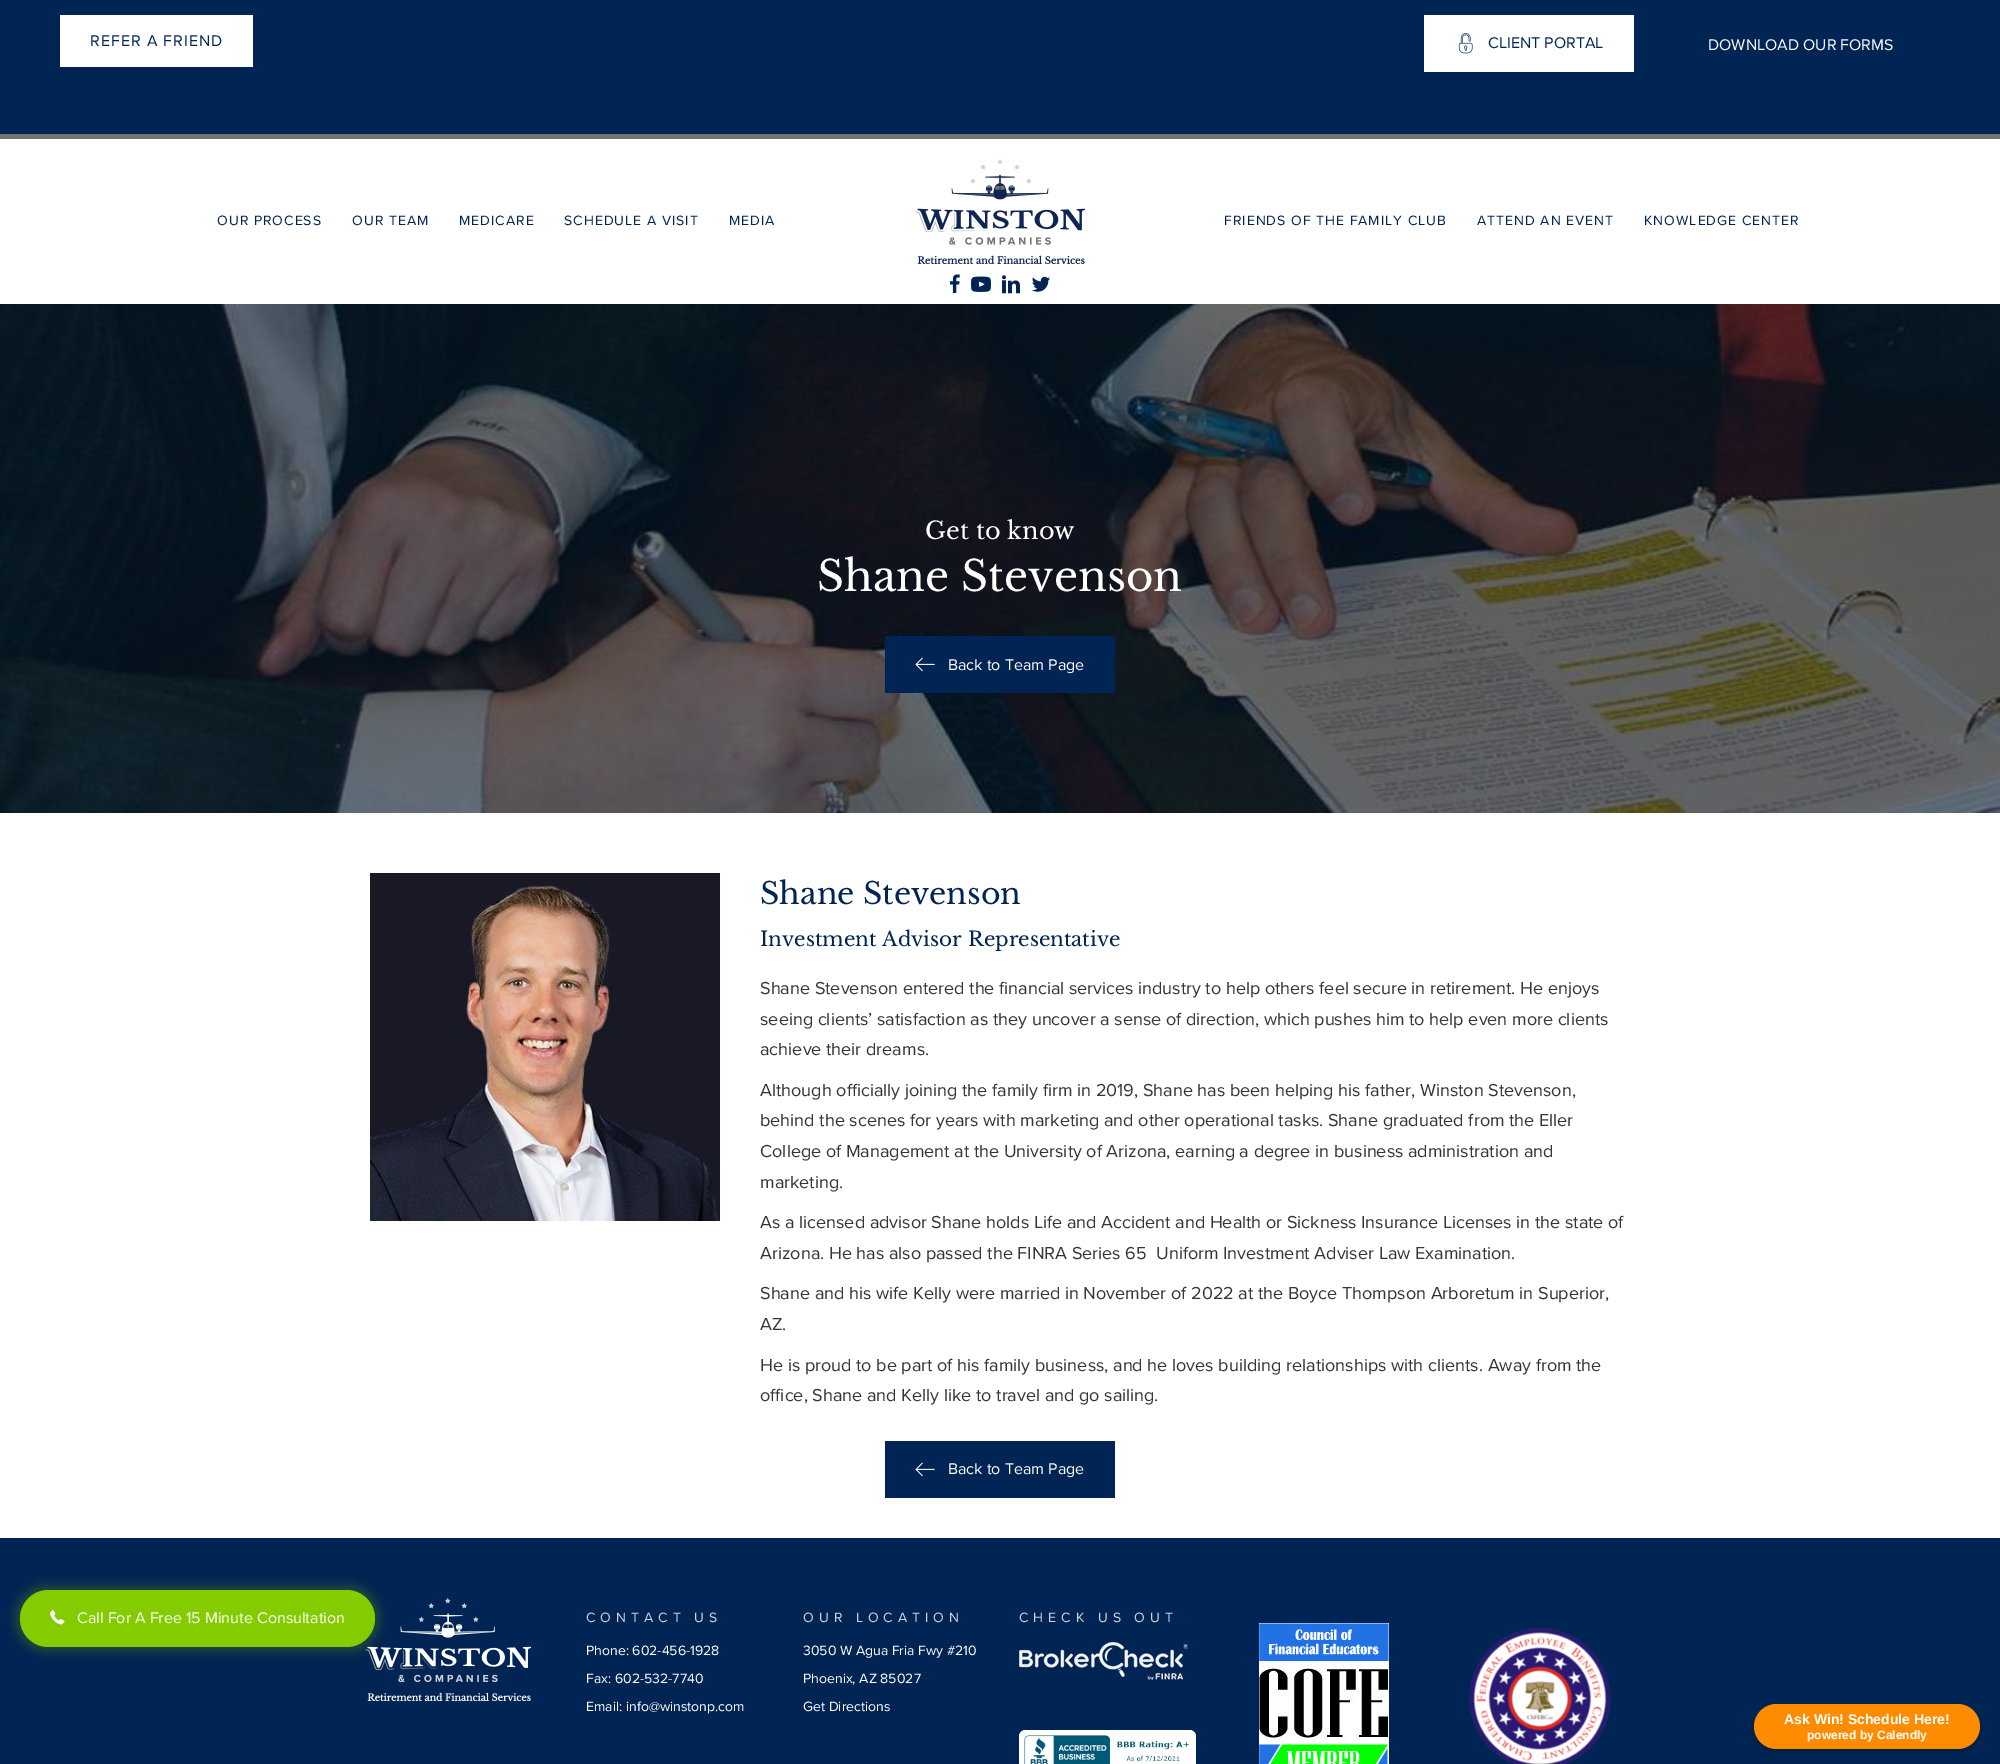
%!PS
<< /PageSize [2000 1764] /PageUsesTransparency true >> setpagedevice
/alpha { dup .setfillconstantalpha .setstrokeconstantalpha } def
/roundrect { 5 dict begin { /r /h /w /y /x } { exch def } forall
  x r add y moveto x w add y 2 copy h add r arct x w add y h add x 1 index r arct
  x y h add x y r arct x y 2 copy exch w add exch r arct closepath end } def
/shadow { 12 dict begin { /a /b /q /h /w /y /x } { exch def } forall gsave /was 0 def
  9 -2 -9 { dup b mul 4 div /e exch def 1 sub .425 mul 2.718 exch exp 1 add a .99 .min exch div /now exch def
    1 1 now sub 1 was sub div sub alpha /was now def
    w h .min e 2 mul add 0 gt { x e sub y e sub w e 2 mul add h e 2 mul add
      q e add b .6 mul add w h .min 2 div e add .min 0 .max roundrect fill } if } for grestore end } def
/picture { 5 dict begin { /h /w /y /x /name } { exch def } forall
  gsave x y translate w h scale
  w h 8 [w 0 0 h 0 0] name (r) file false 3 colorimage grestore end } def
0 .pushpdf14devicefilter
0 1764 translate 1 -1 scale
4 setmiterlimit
1 setgray
0 0 2000 1764 rectfill
0 0.141 0.325 setrgbcolor
0 0 2000 134 rectfill
1 setgray
60 15 193 52 rectfill
/ProximaNova-Regular [16 0 0 -16 0 0] selectfont
0 0.141 0.325 setrgbcolor
90 46 moveto 1 0 (REFER A FRIEND) ashow
1 setgray
1424 15 210 57 rectfill
(img1.rgb) 1458 33 15 21 picture
0 0.141 0.325 setrgbcolor
1488 48 moveto (CLIENT PORTAL) show
1 setgray
1708 50 moveto (DOWNLOAD OUR FORMS) show
0 0.141 0.325 setrgbcolor
0 1538 2000 226 rectfill
(img11.rgb) 365 1598 166 103 picture
0.518 0.8 0 setrgbcolor
15 1585 365 67 33.5 5 0.23 shadow
20 1590 355 57 28.5 roundrect fill
(img2.rgb) 50 1610 15 15 picture
1 setgray
77 1623 moveto (Call For A Free 15 Minute Consultation) show
0.443 0.447 0.443 setrgbcolor
0 134 2000 5 rectfill
/ProximaNova-Regular [14 0 0 -14 0 0] selectfont
0 0.141 0.325 setrgbcolor
217 225 moveto 1 0 (OUR PROCESS) ashow
352 225 moveto 1 0 (OUR TEAM) ashow
459 225 moveto 1 0 (MEDICARE) ashow
564 225 moveto 1 0 (SCHEDULE A VISIT) ashow
729 225 moveto 1 0 (MEDIA) ashow
(img3.rgb) 915 159 170 105 picture
(img4.rgb) 950 274 10 19 picture
(img5.rgb) 971 276 20 16 picture
(img6.rgb) 1002 275 18 19 picture
(img7.rgb) 1032 276 18 16 picture
1224 225 moveto 1 0 (FRIENDS OF THE FAMILY CLUB) ashow
1477 225 moveto 1 0 (ATTEND AN EVENT) ashow
1644 225 moveto 1 0 (KNOWLEDGE CENTER) ashow
(img8.rgb) 0 304 2000 509 picture
/LibreBaskerville-Regular [24 0 0 -24 0 0] selectfont
1 setgray
925 539 moveto (Get to know) show
/LibreBaskerville-Regular [42 0 0 -42 0 0] selectfont
817 591 moveto (Shane Stevenson) show
0 0.141 0.325 setrgbcolor
885 636 230 57 rectfill
(img9.rgb) 915 657 20 15 picture
/ProximaNova-Regular [16 0 0 -16 0 0] selectfont
1 setgray
948 670 moveto (Back to Team Page) show
(img10.rgb) 370 873 350 348 picture
/LibreBaskerville-Regular [30 0 0 -30 0 0] selectfont
0 0.141 0.325 setrgbcolor
760 904 moveto (Shane Stevenson) show
/LibreBaskerville-Regular [20 0 0 -20 0 0] selectfont
760 946 moveto (Investment Advisor Representative) show
/ProximaNova-Regular [18 0 0 -18 0 0] selectfont
0.208 setgray
760 994 moveto (Shane Stevenson entered the financial services industry to help others feel secure in retirement. He enjoys) show
760 1025 moveto (seeing clients’ satisfaction as they uncover a sense of direction, which pushes him to help even more clients) show
760 1055 moveto (achieve their dreams.) show
760 1096 moveto (Although officially joining the family firm in 2019, Shane has been helping his father, Winston Stevenson,) show
760 1126 moveto (behind the scenes for years with marketing and other operational tasks. Shane graduated from the Eller) show
760 1157 moveto (College of Management at the University of Arizona, earning a degree in business administration and) show
760 1188 moveto (marketing.) show
760 1228 moveto (As a licensed advisor Shane holds Life and Accident and Health or Sickness Insurance Licenses in the state of) show
760 1259 moveto (Arizona. He has also passed the FINRA Series 65  Uniform Investment Adviser Law Examination.) show
760 1299 moveto (Shane and his wife Kelly were married in November of 2022 at the Boyce Thompson Arboretum in Superior,) show
760 1330 moveto (AZ.) show
760 1371 moveto (He is proud to be part of his family business, and he loves building relationships with clients. Away from the) show
760 1401 moveto (office, Shane and Kelly like to travel and go sailing.) show
0 0.141 0.325 setrgbcolor
885 1441 230 57 rectfill
(img9.rgb) 915 1462 20 15 picture
/ProximaNova-Regular [16 0 0 -16 0 0] selectfont
1 setgray
948 1474 moveto (Back to Team Page) show
/ProximaNova-Regular [14 0 0 -14 0 0] selectfont
0.812 0.835 0.859 setrgbcolor
586 1622 moveto 5 0 (CONTACT US) ashow
1 setgray
586 1655 moveto (Phone: 602-456-1928) show
586 1683 moveto (Fax: 602-532-7740) show
586 1711 moveto (Email: info@winstonp.com) show
0.812 0.835 0.859 setrgbcolor
803 1622 moveto 5 0 (OUR LOCATION) ashow
1 setgray
803 1655 moveto (3050 W Agua Fria Fwy #210) show
803 1683 moveto (Phoenix, AZ 85027) show
803 1711 moveto (Get Directions) show
0.812 0.835 0.859 setrgbcolor
1019 1622 moveto 5 0 (CHECK US OUT) ashow
(img12.rgb) 1019 1642 169 38 picture
(img13.rgb) 1019 1730 177 34 picture
(img14.rgb) 1259 1623 130 141 picture
(img15.rgb) 1469 1627 142 137 picture
0 setgray
1754 1706 226 45 22.5 2.5 0.25 shadow
1 0.549 0 setrgbcolor
1754 1704 226 45 22.5 roundrect fill
/LiberationSans-Bold [14 0 0 -14 0 0] selectfont
1 setgray
1784 1724 moveto (Ask Win! Schedule Here!) show
/LiberationSans-Bold [12 0 0 -12 0 0] selectfont
1807 1739 moveto (powered by Calendly) show
.poppdf14devicefilter showpage
